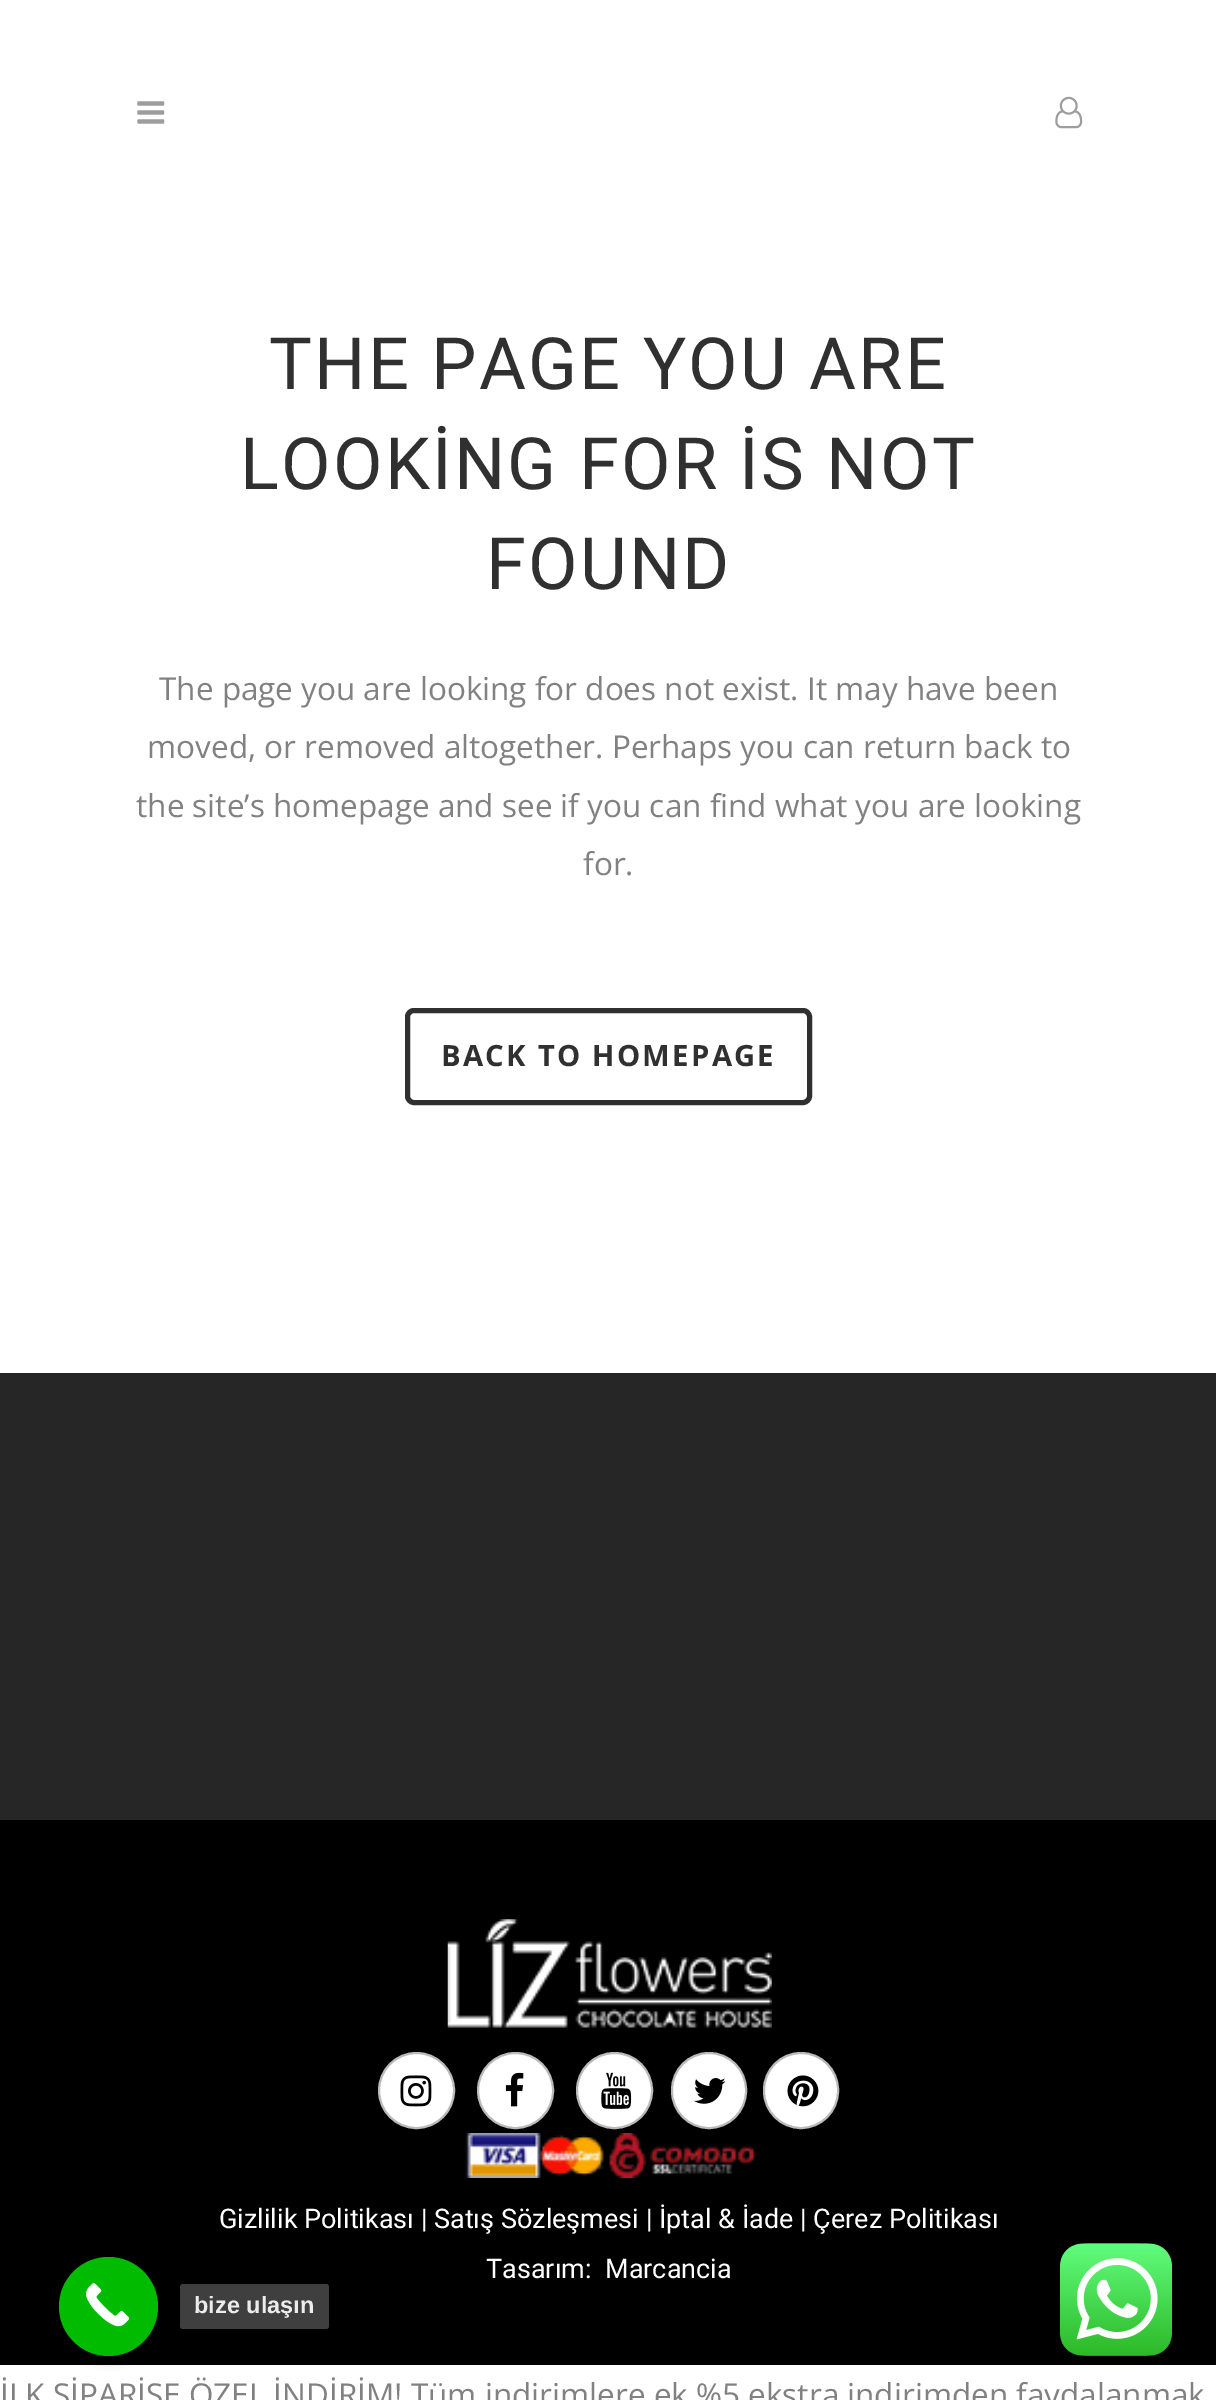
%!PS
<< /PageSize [1216 2400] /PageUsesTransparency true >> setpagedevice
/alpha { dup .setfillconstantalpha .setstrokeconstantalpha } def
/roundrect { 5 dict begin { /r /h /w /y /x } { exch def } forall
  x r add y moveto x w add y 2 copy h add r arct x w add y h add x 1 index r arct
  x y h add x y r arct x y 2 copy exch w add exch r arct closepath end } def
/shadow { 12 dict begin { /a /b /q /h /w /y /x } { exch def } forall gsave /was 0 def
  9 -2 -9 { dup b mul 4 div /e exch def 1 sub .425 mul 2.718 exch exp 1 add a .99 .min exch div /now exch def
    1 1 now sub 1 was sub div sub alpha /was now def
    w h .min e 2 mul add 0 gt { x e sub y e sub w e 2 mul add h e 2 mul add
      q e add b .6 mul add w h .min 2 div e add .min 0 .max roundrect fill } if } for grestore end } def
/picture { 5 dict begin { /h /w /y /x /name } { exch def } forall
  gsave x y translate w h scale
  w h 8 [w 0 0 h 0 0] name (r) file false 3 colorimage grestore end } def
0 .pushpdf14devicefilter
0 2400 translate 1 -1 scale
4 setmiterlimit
1 setgray
0 0 1216 2400 rectfill
(img1.rgb) 137 101 28 23 picture
(img2.rgb) 1055 96 28 33 picture
/Roboto-Regular [72 0 0 -72 0 0] selectfont
0.188 setgray
269 389 moveto 2.25 0 (THE PAGE YOU ARE) ashow
240 489 moveto 2.25 0 (LOOKİNG FOR İS NOT) ashow
486 589 moveto 2.25 0 (FOUND) ashow
/OpenSans-Regular [31.5 0 0 -31.5 0 0] selectfont
0.506 setgray
159 700 moveto (The page you are looking for does not exist. It may have been) show
147 758 moveto (moved, or removed altogether. Perhaps you can return back to) show
136 817 moveto (the site’s homepage and see if you can find what you are looking) show
583 875 moveto (for.) show
0.188 setgray
5 setlinewidth
407.5 1010.5 402 92 6.5 roundrect stroke
/OpenSans-Bold [29.25 0 0 -29.25 0 0] selectfont
441 1066 moveto 2.25 0 (BACK TO HOMEPAGE) ashow
0.149 setgray
0 1373 1216 447 rectfill
0 setgray
0 1820 1216 545 rectfill
(img3.rgb) 447 1919 325 109 picture
1 setgray
newpath 416.5 2090.5 37.5 0 360 arc closepath gsave fill grestore
0.729 setgray
2 setlinewidth
stroke
(img4.rgb) 400 2075 32 32 picture
1 setgray
newpath 515.5 2090.5 37.5 0 360 arc closepath gsave fill grestore
0.729 setgray
stroke
(img5.rgb) 505 2072 19 35 picture
1 setgray
newpath 614.5 2090.5 37.5 0 360 arc closepath gsave fill grestore
0.729 setgray
stroke
(img6.rgb) 601 2072 31 37 picture
1 setgray
672 2053 74 75 37 roundrect gsave fill grestore
0.729 setgray
stroke
(img7.rgb) 694 2078 32 26 picture
1 setgray
764 2053 74 75 37 roundrect gsave fill grestore
0.729 setgray
stroke
(img8.rgb) 787 2075 32 32 picture
(img9.rgb) 465 2133 290 45 picture
/Roboto-Regular [27 0 0 -27 0 0] selectfont
1 setgray
219 2228 moveto (Gizlilik Politikası | Satış Sözleşmesi | İptal & İade | Çerez Politikası) show
486 2278 moveto (Tasarım:) show
605 2278 moveto (Marcancia) show
gsave
newpath 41 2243 moveto 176 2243 lineto 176 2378 lineto 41 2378 lineto closepath 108.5 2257 moveto 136 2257 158 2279 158 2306.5 curveto 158 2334 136 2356 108.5 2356 curveto 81 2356 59 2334 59 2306.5 curveto 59 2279 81 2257 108.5 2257 curveto closepath eoclip newpath
0 setgray
59 2261 99 99 49.5 5.5 0.3 shadow
grestore
0 0.733 0 setrgbcolor
newpath 108.5 2306.5 49.5 0 360 arc closepath fill
(img10.rgb) 86 2283 44 44 picture
0.247 setgray
180 2284 149 45 3 roundrect fill
/LiberationSans-Bold [23.5 0 0 -23.5 0 0] selectfont
0.925 setgray
194 2313 moveto (bize ulaşın) show
(img11.rgb) 1060 2243 112 113 picture
/OpenSans-Regular [31.5 0 0 -31.5 0 0] selectfont
0.506 setgray
0 2406 moveto (İLK SİPARİŞE ÖZEL İNDİRİM! Tüm indirimlere ek %5 ekstra indirimden faydalanmak) show
.poppdf14devicefilter showpage
